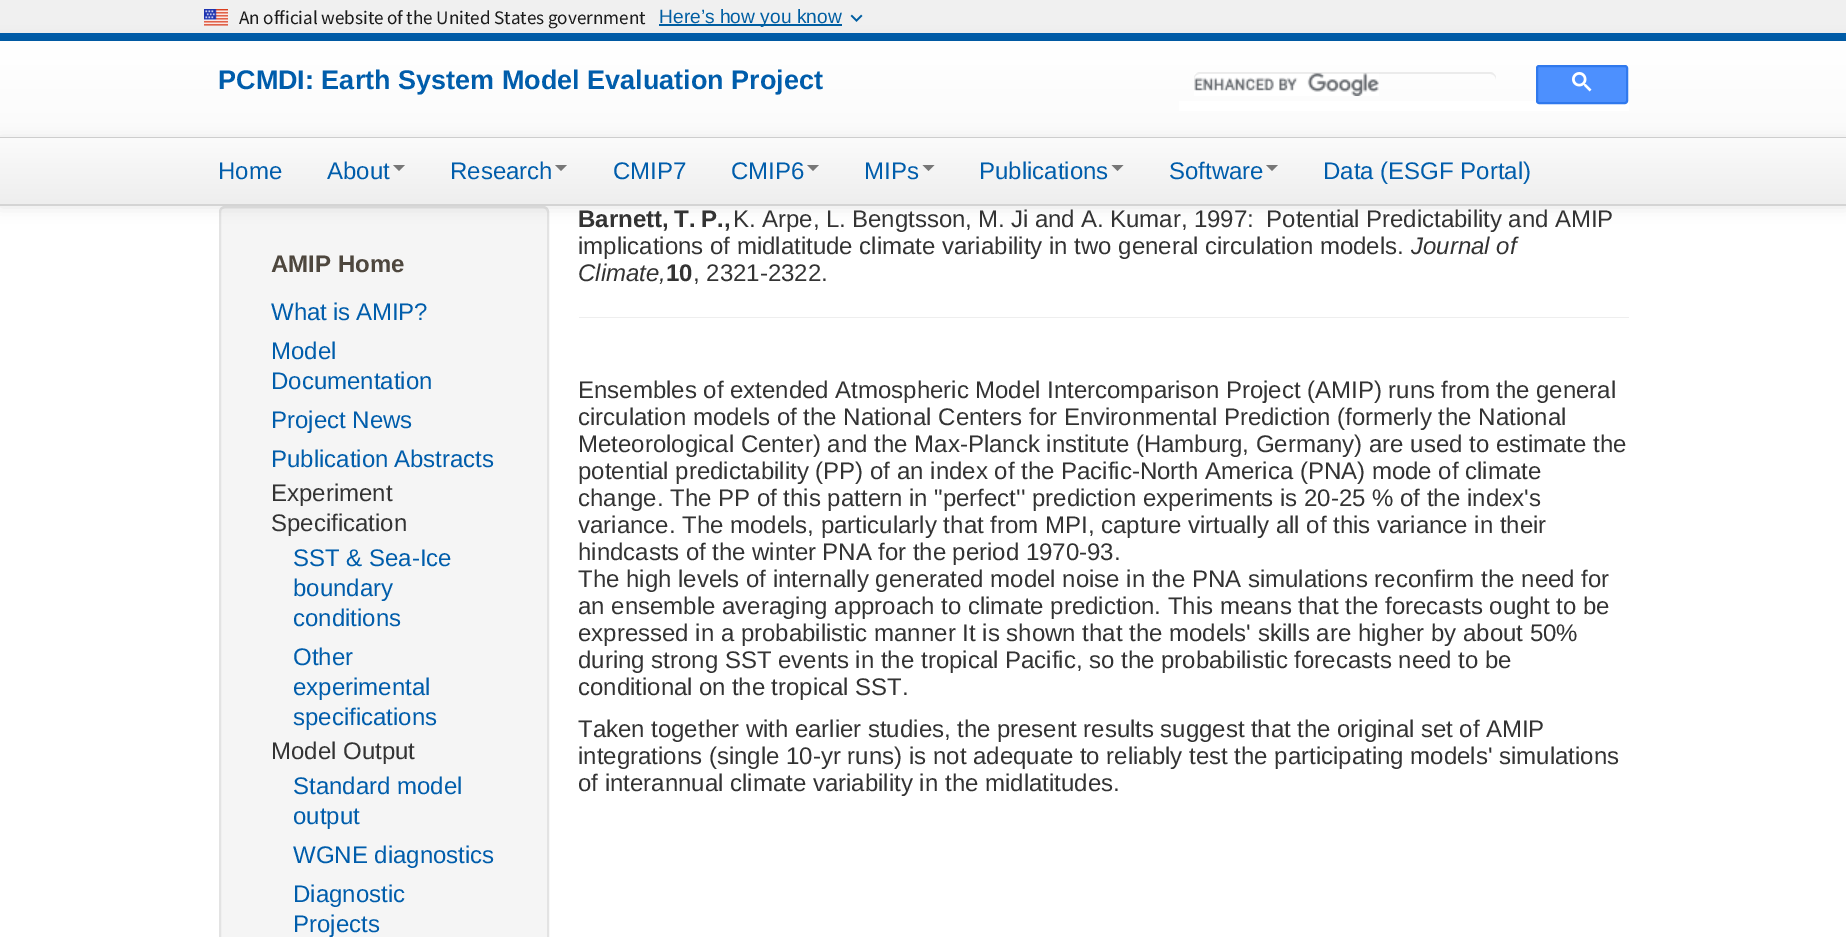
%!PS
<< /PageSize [1846 937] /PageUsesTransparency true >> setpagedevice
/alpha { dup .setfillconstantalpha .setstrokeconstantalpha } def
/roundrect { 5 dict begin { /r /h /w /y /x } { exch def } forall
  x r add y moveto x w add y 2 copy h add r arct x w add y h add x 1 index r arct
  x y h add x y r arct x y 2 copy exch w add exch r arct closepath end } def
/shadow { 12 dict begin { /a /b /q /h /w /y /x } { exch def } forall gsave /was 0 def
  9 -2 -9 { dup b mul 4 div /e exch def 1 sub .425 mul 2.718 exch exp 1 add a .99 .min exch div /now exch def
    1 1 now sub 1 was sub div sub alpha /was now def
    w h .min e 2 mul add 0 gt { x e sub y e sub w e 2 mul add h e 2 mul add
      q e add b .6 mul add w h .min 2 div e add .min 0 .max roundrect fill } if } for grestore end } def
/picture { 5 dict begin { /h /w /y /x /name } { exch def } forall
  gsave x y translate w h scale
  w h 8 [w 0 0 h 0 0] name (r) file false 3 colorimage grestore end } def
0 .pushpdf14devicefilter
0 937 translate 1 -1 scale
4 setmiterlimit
1 setgray
0 0 1846 937 rectfill
0.941 setgray
0 0 1846 33 rectfill
(img1.rgb) 204 9 24 17 picture
/SourceSansPro-Regular [19.2 0 0 -19.2 0 0] selectfont
0.106 setgray
239 24 moveto -0.5 0 32 (An official website of the United States government) widthshow
0 0.369 0.635 setrgbcolor
659 24 183 2 rectfill
/LiberationSans-Regular [19.2 0 0 -19.2 0 0] selectfont
659 23 moveto (Here’s how you know) show
(img2.rgb) 850 14 13 8 picture
0 0.365 0.671 setrgbcolor
0 33 1846 8 rectfill
0 setgray
0 42 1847 98 0 7.5 0.1 shadow
gsave newpath 0 41 moveto 1846 41 lineto 1846 137 lineto 0 137 lineto closepath clip newpath
<< /ShadingType 2 /ColorSpace /DeviceRGB /Coords [923 40 923 137] /Extend [true true] /Function << /FunctionType 2 /Domain [0 1] /C0 [1 1 1] /C1 [0.984 0.984 0.984] /N 1 >> >> shfill grestore
0.831 setgray
0 137 1846 1 rectfill
/LiberationSans-Bold [27 0 0 -27 0 0] selectfont
0 0.365 0.671 setrgbcolor
218 89 moveto (PCMDI: Earth System Model Evaluation Project) show
1 setgray
1179 101 450 10 rectfill
(img3.rgb) 1194 73 185 23 picture
0.07 alpha
0 setgray
newpath 1200 74 moveto 1490 74 lineto 1493 74 1496 76 1496 80 curveto 1496 78 lineto 1496 75 1493 72 1490 72 curveto 1200 72 lineto 1197 72 1194 75 1194 78 curveto 1194 80 lineto 1194 76 1197 74 1200 74 curveto closepath fill
1 alpha
0.302 0.565 0.996 setrgbcolor
1537 66 90 37 2 roundrect gsave fill grestore
0.188 0.475 0.929 setrgbcolor
2 setlinewidth
stroke
(img4.rgb) 1572 72 20 20 picture
0.961 setgray
219 206 330 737 6 roundrect fill
0.914 setgray
newpath 225 208 moveto 543 208 lineto 545 208 548 211 548 213 curveto 548 212 lineto 548 209 546 207 543 207 curveto 226 207 lineto 224 207 222 208 221 210 curveto 222 209 224 208 225 208 curveto closepath fill
0.89 setgray
220 207 328 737 5 roundrect stroke
0 setgray
0 140 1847 67 0 7.5 0.1 shadow
gsave newpath 0 138 moveto 1846 138 lineto 1846 204 lineto 0 204 lineto closepath clip newpath
<< /ShadingType 2 /ColorSpace /DeviceRGB /Coords [923 138 923 204] /Extend [true true] /Function << /FunctionType 2 /Domain [0 1] /C0 [0.984 0.984 0.984] /C1 [0.933 0.933 0.933] /N 1 >> >> shfill grestore
0.831 setgray
0 204 1846 2 rectfill
/LiberationSans-Regular [24 0 0 -24 0 0] selectfont
0 0.365 0.671 setrgbcolor
218 179 moveto (Home) show
327 179 moveto (About) show
0.467 setgray
newpath 393 165 moveto 405 165 lineto 399 171 lineto closepath fill
0 0.365 0.671 setrgbcolor
450 179 moveto (Research) show
0.467 setgray
newpath 555 165 moveto 567 165 lineto 561 171 lineto closepath fill
0 0.365 0.671 setrgbcolor
613 179 moveto (CMIP7) show
731 179 moveto (CMIP6) show
0.467 setgray
newpath 807 165 moveto 819 165 lineto 813 171 lineto closepath fill
0 0.365 0.671 setrgbcolor
864 179 moveto (MIPs) show
0.467 setgray
newpath 922.5 165 moveto 934.5 165 lineto 928.5 171 lineto closepath fill
0 0.365 0.671 setrgbcolor
979 179 moveto (Publications) show
0.467 setgray
newpath 1111.5 165 moveto 1123.5 165 lineto 1117.5 171 lineto closepath fill
0 0.365 0.671 setrgbcolor
1169 179 moveto (Software) show
0.467 setgray
newpath 1266 165 moveto 1278 165 lineto 1272 171 lineto closepath fill
0 0.365 0.671 setrgbcolor
1323 179 moveto (Data \(ESGF Portal\)) show
/LiberationSans-Bold [24 0 0 -24 0 0] selectfont
0.306 0.278 0.243 setrgbcolor
271 272 moveto (AMIP Home) show
/LiberationSans-Regular [24 0 0 -24 0 0] selectfont
0 0.365 0.671 setrgbcolor
271 320 moveto -1 0 32 (What is AMIP?) widthshow
271 359 moveto (Model) show
271 389 moveto (Documentation) show
271 428 moveto (Project News) show
271 467 moveto -1 0 32 (Publication Abstracts) widthshow
0.2 setgray
271 501 moveto (Experiment) show
271 531 moveto (Specification) show
0 0.365 0.671 setrgbcolor
293 566 moveto (SST & Sea-Ice) show
293 596 moveto (boundary) show
293 626 moveto (conditions) show
293 665 moveto (Other) show
293 695 moveto (experimental) show
293 725 moveto (specifications) show
0.2 setgray
271 759 moveto (Model Output) show
0 0.365 0.671 setrgbcolor
293 794 moveto (Standard model) show
293 824 moveto (output) show
293 863 moveto (WGNE diagnostics) show
293 902 moveto (Diagnostic) show
293 932 moveto (Projects) show
/LiberationSans-Bold [24 0 0 -24 0 0] selectfont
0.2 setgray
578 227 moveto -1 0 32 (Barnett, T. P.,) widthshow
/LiberationSans-Regular [24 0 0 -24 0 0] selectfont
733 227 moveto -0.4 0 32 (K. Arpe, L. Bengtsson, M. Ji and A. Kumar, 1997:  Potential Predictability and AMIP) widthshow
578 254 moveto (implications of midlatitude climate variability in two general circulation models.) show
/LiberationSans-Italic [24 0 0 -24 0 0] selectfont
1411 254 moveto (Journal of) show
578 281 moveto (Climate,) show
/LiberationSans-Bold [24 0 0 -24 0 0] selectfont
666 281 moveto (10) show
/LiberationSans-Regular [24 0 0 -24 0 0] selectfont
693 281 moveto (, 2321-2322.) show
0.933 setgray
579 317 1050 1 rectfill
0.2 setgray
578 398 moveto -0.1 0 32 (Ensembles of extended Atmospheric Model Intercomparison Project \(AMIP\) runs from the general) widthshow
578 425 moveto (circulation models of the National Centers for Environmental Prediction \(formerly the National) show
578 452 moveto (Meteorological Center\) and the Max-Planck institute \(Hamburg, Germany\) are used to estimate the) show
578 479 moveto (potential predictability \(PP\) of an index of the Pacific-North America \(PNA\) mode of climate) show
578 506 moveto (change. The PP of this pattern in "perfect'' prediction experiments is 20-25 % of the index's) show
578 533 moveto (variance. The models, particularly that from MPI, capture virtually all of this variance in their) show
578 560 moveto -0.25 0 32 (hindcasts of the winter PNA for the period 1970-93.) widthshow
578 587 moveto (The high levels of internally generated model noise in the PNA simulations reconfirm the need for) show
578 614 moveto (an ensemble averaging approach to climate prediction. This means that the forecasts ought to be) show
578 641 moveto (expressed in a probabilistic manner It is shown that the models' skills are higher by about 50%) show
578 668 moveto (during strong SST events in the tropical Pacific, so the probabilistic forecasts need to be) show
578 695 moveto -0.5 0 32 (conditional on the tropical SST.) widthshow
578 737 moveto -0.25 0 32 (Taken together with earlier studies, the present results suggest that the original set of AMIP) widthshow
578 764 moveto (integrations \(single 10-yr runs\) is not adequate to reliably test the participating models' simulations) show
578 791 moveto (of interannual climate variability in the midlatitudes.) show
.poppdf14devicefilter showpage
